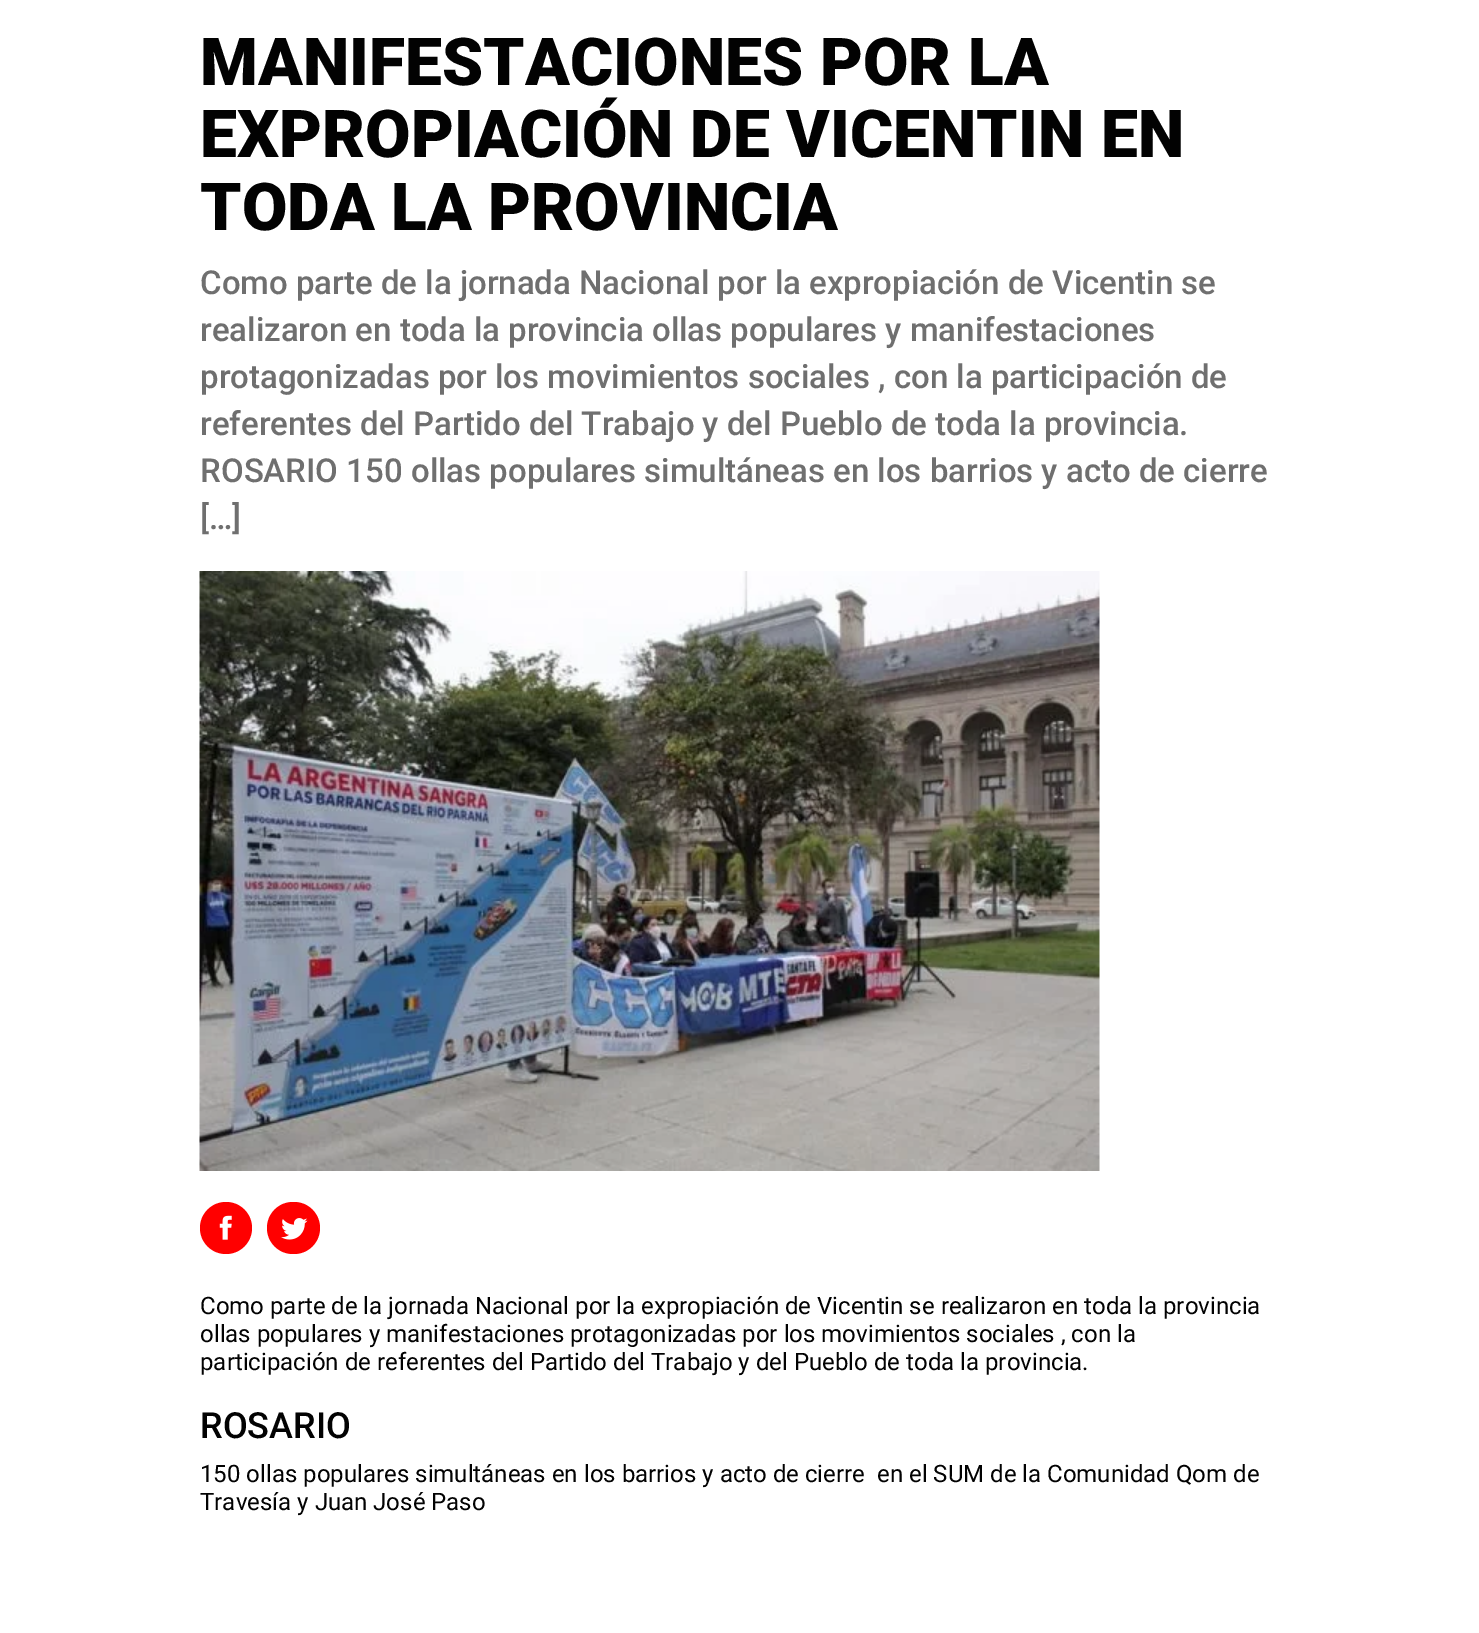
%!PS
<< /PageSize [1479 1633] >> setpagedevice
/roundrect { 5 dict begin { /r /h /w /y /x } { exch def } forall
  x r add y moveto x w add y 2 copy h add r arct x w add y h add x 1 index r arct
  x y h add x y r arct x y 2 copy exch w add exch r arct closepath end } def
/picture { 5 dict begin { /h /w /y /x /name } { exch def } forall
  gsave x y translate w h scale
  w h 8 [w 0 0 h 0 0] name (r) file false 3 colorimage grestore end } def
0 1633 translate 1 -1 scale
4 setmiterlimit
1 setgray
0 0 1479 1633 rectfill
/Roboto-Black [66 0 0 -66 0 0] selectfont
0.008 setgray
200 85 moveto (MANIFESTACIONES POR LA) show
200 157 moveto (EXPROPIACIÓN DE VICENTIN EN) show
200 230 moveto (TODA LA PROVINCIA) show
/Roboto-Medium [33 0 0 -33 0 0] selectfont
0.435 setgray
200 294 moveto (Como parte de la jornada Nacional por la expropiación de Vicentin se) show
200 341 moveto (realizaron en toda la provincia ollas populares y manifestaciones) show
200 388 moveto (protagonizadas por los movimientos sociales , con la participación de) show
200 435 moveto (referentes del Partido del Trabajo y del Pueblo de toda la provincia.) show
200 482 moveto (ROSARIO 150 ollas populares simultáneas en los barrios y acto de cierre) show
200 529 moveto ([…]) show
(img1.rgb) 199 571 901 600 picture
1 0 0 setrgbcolor
newpath 226 1228 26 0 360 arc closepath fill
(img2.rgb) 219 1215 13 25 picture
267 1202 53 52 26 roundrect fill
(img3.rgb) 281 1218 27 22 picture
/Roboto-Regular [24 0 0 -24 0 0] selectfont
0.008 setgray
200 1314 moveto (Como parte de la jornada Nacional por la expropiación de Vicentin se realizaron en toda la provincia) show
200 1342 moveto (ollas populares y manifestaciones protagonizadas por los movimientos sociales , con la) show
200 1370 moveto (participación de referentes del Partido del Trabajo y del Pueblo de toda la provincia.) show
/Roboto-Medium [36 0 0 -36 0 0] selectfont
200 1438 moveto (ROSARIO) show
/Roboto-Regular [24 0 0 -24 0 0] selectfont
200 1482 moveto (150 ollas populares simultáneas en los barrios y acto de cierre  en el SUM de la Comunidad Qom de) show
200 1510 moveto (Travesía y Juan José Paso) show
showpage
